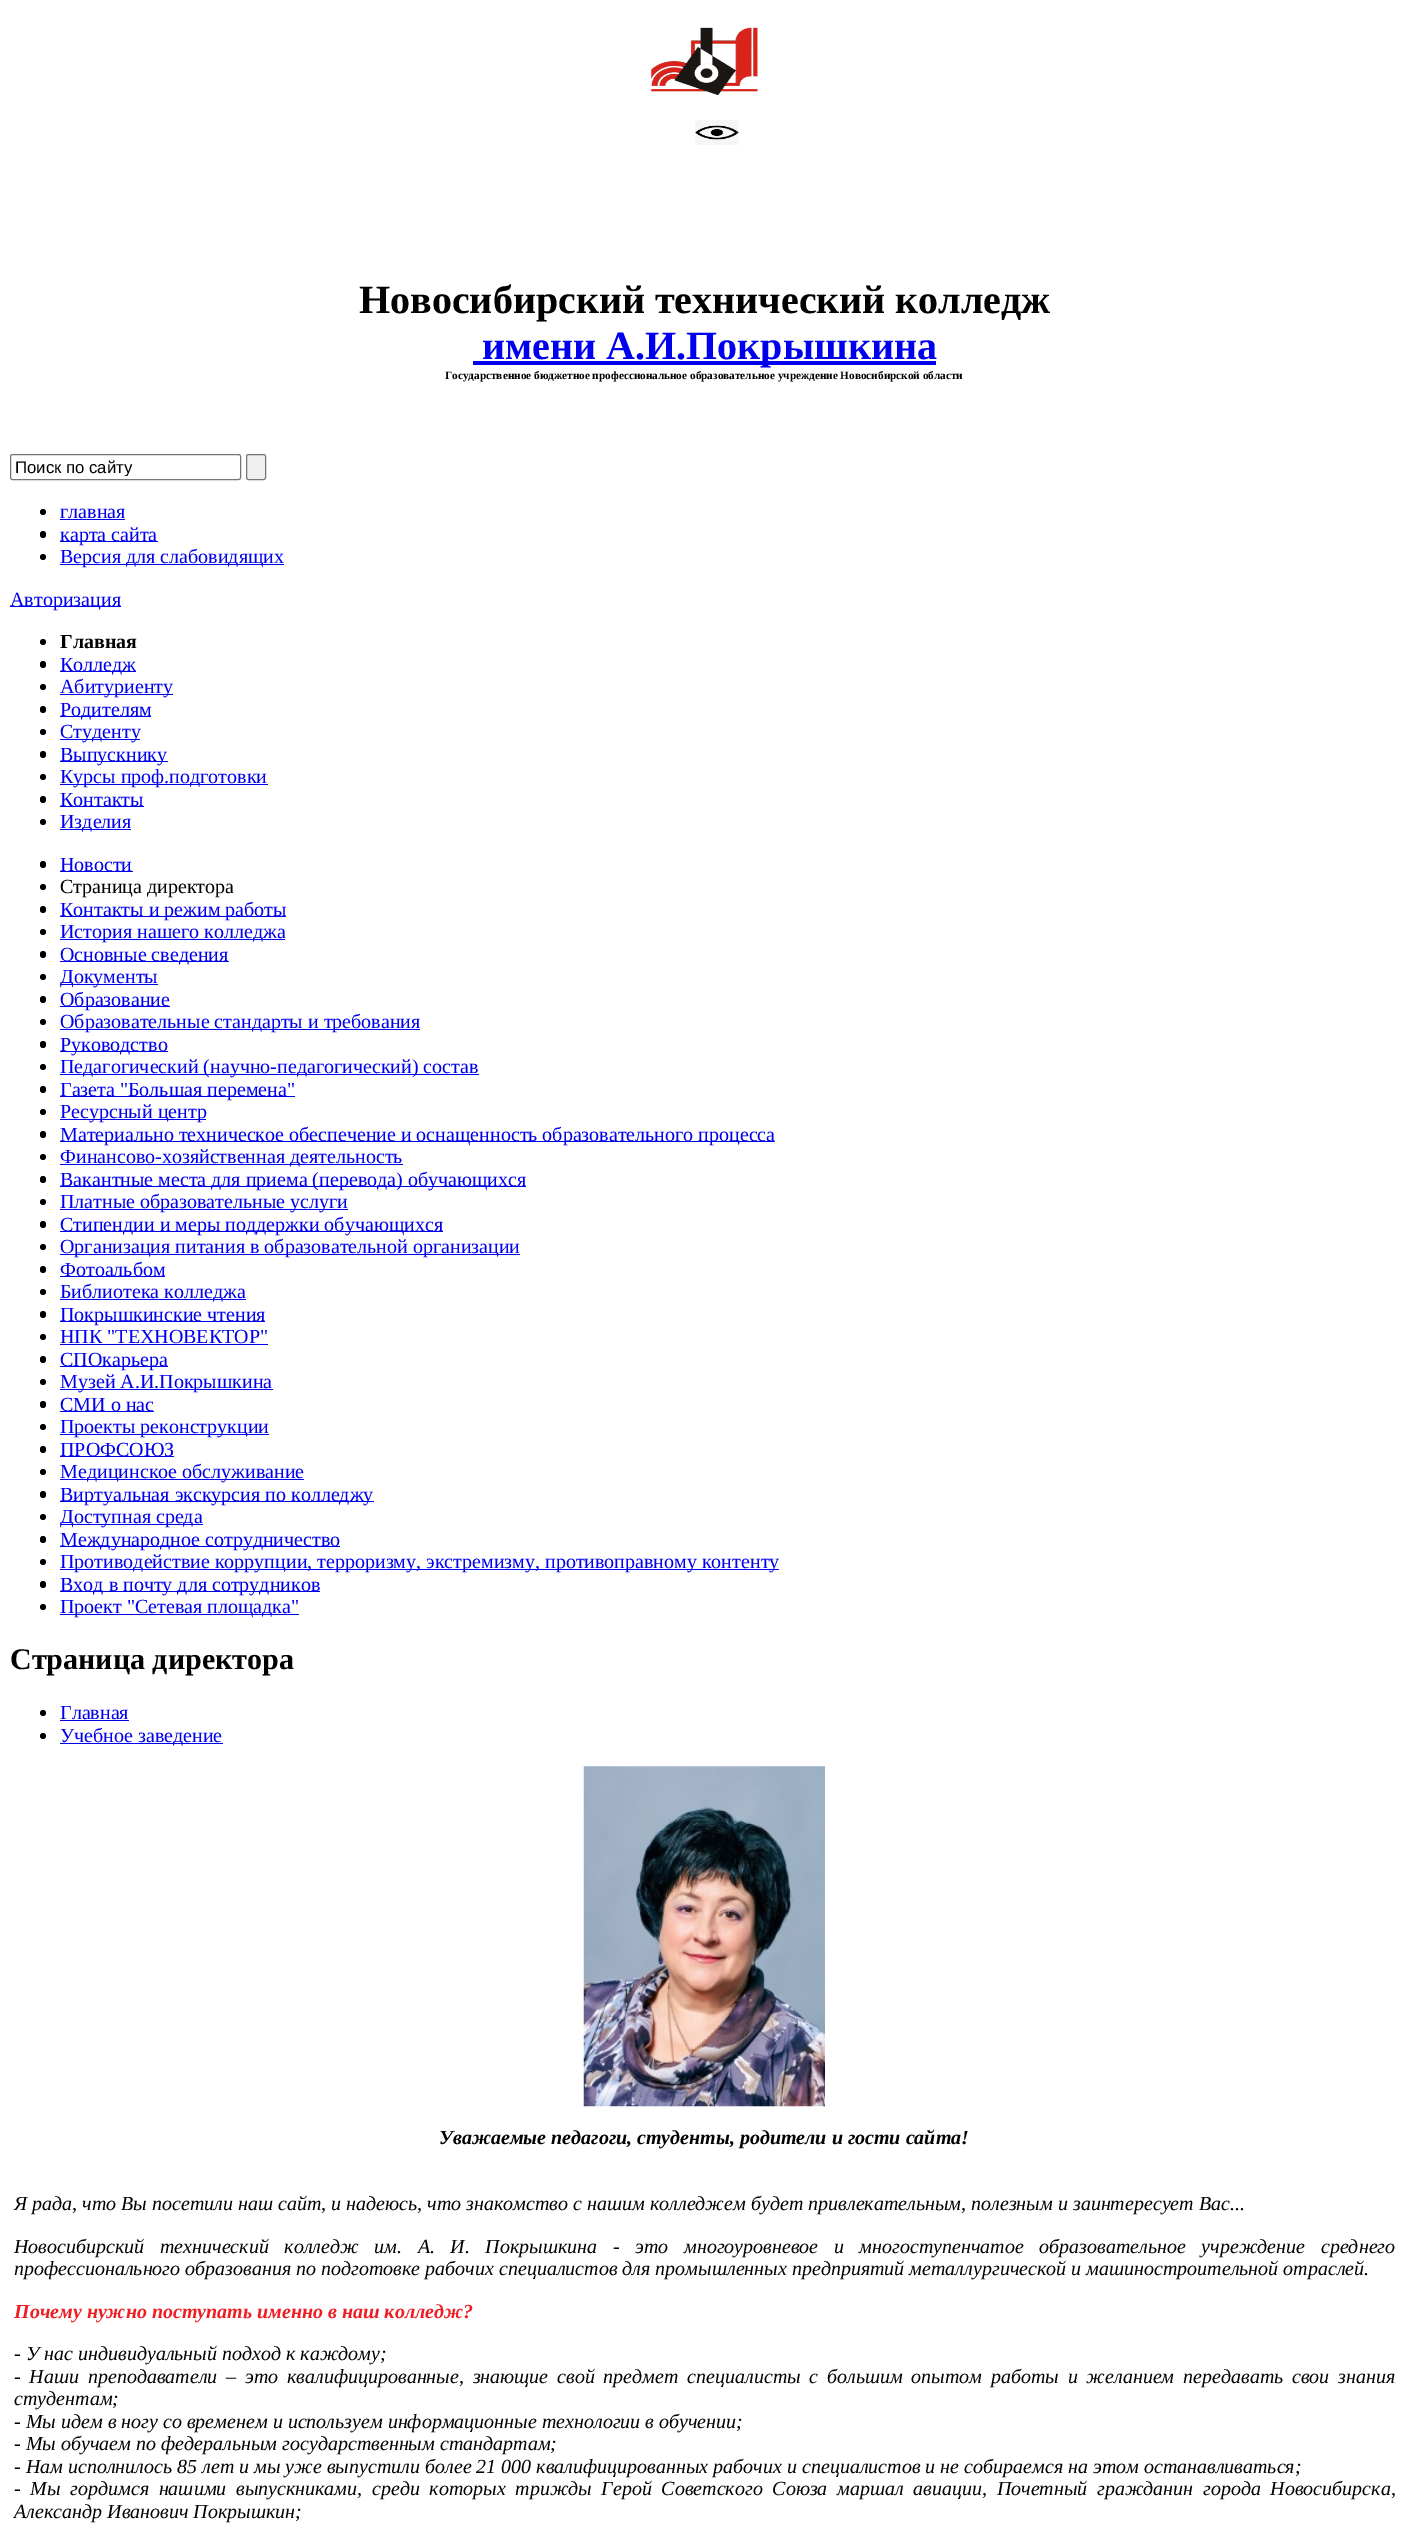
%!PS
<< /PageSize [1408 2533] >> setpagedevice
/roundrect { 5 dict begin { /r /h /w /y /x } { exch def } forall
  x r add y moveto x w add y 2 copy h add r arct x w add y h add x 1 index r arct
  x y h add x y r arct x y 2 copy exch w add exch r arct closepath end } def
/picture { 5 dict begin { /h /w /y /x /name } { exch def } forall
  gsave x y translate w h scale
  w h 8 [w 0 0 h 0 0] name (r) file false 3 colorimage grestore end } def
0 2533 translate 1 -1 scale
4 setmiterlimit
1 setgray
0 0 1408 2533 rectfill
(img1.rgb) 651 27 107 68 picture
(img2.rgb) 695 120 44 25 picture
/LiberationSerif-Bold [40 0 0 -40 0 0] selectfont
0 setgray
359 313 moveto (Новосибирский технический колледж) show
0 0 0.933 setrgbcolor
473 361 463 4 rectfill
482 359 moveto (имени А.И.Покрышкина) show
/LiberationSerif-Bold [11.25 0 0 -11.25 0 0] selectfont
0 setgray
445 379 moveto (Государственное бюджетное профессиональное образовательное учреждение Новосибирской области) show
0.463 setgray
10.5 454.5 230 25 2 roundrect stroke
gsave
15 458 221 18 rectclip
/LiberationSans-Regular [16.75 0 0 -16.75 0 0] selectfont
0 setgray
15 473 moveto (Поиск по сайту) show
grestore
0.937 setgray
246.5 454.5 19 25 2 roundrect gsave fill grestore
0.463 setgray
stroke
0 setgray
newpath 43 512 3 0 360 arc closepath fill
/LiberationSerif-Regular [20 0 0 -20 0 0] selectfont
0 0 0.933 setrgbcolor
60 518 moveto (главная) show
60 519 65 1 rectfill
0 setgray
40 531 6 7 3 roundrect fill
0 0 0.933 setrgbcolor
60 541 98 1 rectfill
60 541 moveto (карта сайта) show
0 setgray
newpath 43 557 3 0 360 arc closepath fill
0 0 0.933 setrgbcolor
60 564 224 1 rectfill
60 563 moveto (Версия для слабовидящих) show
10 606 111 1 rectfill
10 606 moveto (Авторизация) show
0 setgray
newpath 43 642 3 0 360 arc closepath fill
/LiberationSerif-Bold [20 0 0 -20 0 0] selectfont
60 648 moveto (Главная) show
40 661 6 7 3 roundrect fill
0 0 0.933 setrgbcolor
60 671 76 1 rectfill
/LiberationSerif-Regular [20 0 0 -20 0 0] selectfont
60 671 moveto (Колледж) show
0 setgray
newpath 43 687 3 0 360 arc closepath fill
0 0 0.933 setrgbcolor
60 694 113 1 rectfill
60 693 moveto (Абитуриенту) show
0 setgray
40 706 6 7 3 roundrect fill
0 0 0.933 setrgbcolor
60 716 91 1 rectfill
60 716 moveto (Родителям) show
0 setgray
newpath 43 732 3 0 360 arc closepath fill
0 0 0.933 setrgbcolor
60 739 80 1 rectfill
60 738 moveto (Студенту) show
0 setgray
40 751 6 7 3 roundrect fill
0 0 0.933 setrgbcolor
60 761 108 1 rectfill
60 761 moveto (Выпускнику) show
0 setgray
newpath 43 777 3 0 360 arc closepath fill
0 0 0.933 setrgbcolor
60 784 208 1 rectfill
60 783 moveto (Курсы проф.подготовки) show
0 setgray
40 796 6 7 3 roundrect fill
0 0 0.933 setrgbcolor
60 806 84 1 rectfill
60 806 moveto (Контакты) show
0 setgray
newpath 43 822 3 0 360 arc closepath fill
0 0 0.933 setrgbcolor
60 829 71 1 rectfill
60 828 moveto (Изделия) show
0 setgray
40 861 6 7 3 roundrect fill
0 0 0.933 setrgbcolor
60 871 73 1 rectfill
60 871 moveto (Новости) show
0 setgray
newpath 43 887 3 0 360 arc closepath fill
60 893 moveto (Страница директора) show
40 906 6 7 3 roundrect fill
0 0 0.933 setrgbcolor
60 916 226 1 rectfill
60 916 moveto (Контакты и режим работы) show
0 setgray
newpath 43 932 3 0 360 arc closepath fill
0 0 0.933 setrgbcolor
60 939 225 1 rectfill
60 938 moveto (История нашего колледжа) show
0 setgray
40 951 6 7 3 roundrect fill
0 0 0.933 setrgbcolor
60 961 169 1 rectfill
60 961 moveto (Основные сведения) show
0 setgray
newpath 43 977 3 0 360 arc closepath fill
0 0 0.933 setrgbcolor
60 984 98 1 rectfill
60 983 moveto (Документы) show
0 setgray
40 996 6 7 3 roundrect fill
0 0 0.933 setrgbcolor
60 1006 110 1 rectfill
60 1006 moveto (Образование) show
0 setgray
newpath 43 1022 3 0 360 arc closepath fill
0 0 0.933 setrgbcolor
60 1029 360 1 rectfill
60 1028 moveto (Образовательные стандарты и требования) show
0 setgray
40 1041 6 7 3 roundrect fill
0 0 0.933 setrgbcolor
60 1051 108 1 rectfill
60 1051 moveto (Руководство) show
0 setgray
newpath 43 1067 3 0 360 arc closepath fill
0 0 0.933 setrgbcolor
60 1074 419 1 rectfill
60 1073 moveto (Педагогический \(научно-педагогический\) состав) show
0 setgray
40 1086 6 7 3 roundrect fill
0 0 0.933 setrgbcolor
60 1096 235 1 rectfill
60 1096 moveto (Газета "Большая перемена") show
0 setgray
newpath 43 1112 3 0 360 arc closepath fill
0 0 0.933 setrgbcolor
60 1119 146 1 rectfill
60 1118 moveto (Ресурсный центр) show
0 setgray
40 1131 6 7 3 roundrect fill
0 0 0.933 setrgbcolor
60 1141 715 1 rectfill
60 1141 moveto (Материально техническое обеспечение и оснащенность образовательного процесса) show
0 setgray
newpath 43 1157 3 0 360 arc closepath fill
0 0 0.933 setrgbcolor
60 1164 343 1 rectfill
60 1163 moveto (Финансово-хозяйственная деятельность) show
0 setgray
40 1176 6 7 3 roundrect fill
0 0 0.933 setrgbcolor
60 1186 466 1 rectfill
60 1186 moveto (Вакантные места для приема \(перевода\) обучающихся) show
0 setgray
newpath 43 1202 3 0 360 arc closepath fill
0 0 0.933 setrgbcolor
60 1209 288 1 rectfill
60 1208 moveto (Платные образовательные услуги) show
0 setgray
40 1221 6 7 3 roundrect fill
0 0 0.933 setrgbcolor
60 1231 383 1 rectfill
60 1231 moveto (Стипендии и меры поддержки обучающихся) show
0 setgray
newpath 43 1247 3 0 360 arc closepath fill
0 0 0.933 setrgbcolor
60 1254 460 1 rectfill
60 1253 moveto (Организация питания в образовательной организации) show
0 setgray
40 1266 6 7 3 roundrect fill
0 0 0.933 setrgbcolor
60 1276 105 1 rectfill
60 1276 moveto (Фотоальбом) show
0 setgray
newpath 43 1292 3 0 360 arc closepath fill
0 0 0.933 setrgbcolor
60 1299 186 1 rectfill
60 1298 moveto (Библиотека колледжа) show
0 setgray
40 1311 6 7 3 roundrect fill
0 0 0.933 setrgbcolor
60 1321 205 1 rectfill
60 1321 moveto (Покрышкинские чтения) show
0 setgray
newpath 43 1337 3 0 360 arc closepath fill
0 0 0.933 setrgbcolor
60 1343 moveto (НПК "ТЕХНОВЕКТОР") show
60 1344 208 1 rectfill
0 setgray
40 1356 6 7 3 roundrect fill
0 0 0.933 setrgbcolor
60 1366 108 1 rectfill
60 1366 moveto (СПОкарьера) show
0 setgray
newpath 43 1382 3 0 360 arc closepath fill
0 0 0.933 setrgbcolor
60 1389 213 1 rectfill
60 1388 moveto (Музей А.И.Покрышкина) show
0 setgray
40 1401 6 7 3 roundrect fill
0 0 0.933 setrgbcolor
60 1411 94 1 rectfill
60 1411 moveto (СМИ о нас) show
0 setgray
newpath 43 1427 3 0 360 arc closepath fill
0 0 0.933 setrgbcolor
60 1434 209 1 rectfill
60 1433 moveto (Проекты реконструкции) show
0 setgray
40 1446 6 7 3 roundrect fill
0 0 0.933 setrgbcolor
60 1456 114 1 rectfill
60 1456 moveto (ПРОФСОЮЗ) show
0 setgray
newpath 43 1472 3 0 360 arc closepath fill
0 0 0.933 setrgbcolor
60 1479 244 1 rectfill
60 1478 moveto (Медицинское обслуживание) show
0 setgray
40 1491 6 7 3 roundrect fill
0 0 0.933 setrgbcolor
60 1501 314 1 rectfill
60 1501 moveto (Виртуальная экскурсия по колледжу) show
0 setgray
newpath 43 1517 3 0 360 arc closepath fill
0 0 0.933 setrgbcolor
60 1524 143 1 rectfill
60 1523 moveto (Доступная среда) show
0 setgray
40 1536 6 7 3 roundrect fill
0 0 0.933 setrgbcolor
60 1546 280 1 rectfill
60 1546 moveto (Международное сотрудничество) show
0 setgray
newpath 43 1562 3 0 360 arc closepath fill
0 0 0.933 setrgbcolor
60 1569 719 1 rectfill
60 1568 moveto (Противодействие коррупции, терроризму, экстремизму, противоправному контенту) show
0 setgray
40 1581 6 7 3 roundrect fill
0 0 0.933 setrgbcolor
60 1591 260 1 rectfill
60 1591 moveto (Вход в почту для сотрудников) show
0 setgray
newpath 43 1607 3 0 360 arc closepath fill
0 0 0.933 setrgbcolor
60 1614 239 1 rectfill
60 1613 moveto (Проект "Сетевая площадка") show
/LiberationSerif-Bold [30 0 0 -30 0 0] selectfont
0 setgray
10 1669 moveto (Страница директора) show
newpath 43 1713 3 0 360 arc closepath fill
/LiberationSerif-Regular [20 0 0 -20 0 0] selectfont
0 0 0.933 setrgbcolor
60 1719 moveto (Главная) show
60 1720 69 1 rectfill
0 setgray
newpath 43 1736 3 0 360 arc closepath fill
0 0 0.933 setrgbcolor
60 1743 163 1 rectfill
60 1742 moveto (Учебное заведение) show
(img3.rgb) 583 1766 242 341 picture
/LiberationSerif-BoldItalic [20 0 0 -20 0 0] selectfont
0 setgray
439 2144 moveto (Уважаемые педагоги, студенты, родители и гости сайта!) show
/LiberationSerif-Italic [20 0 0 -20 0 0] selectfont
14 2210 moveto (Я рада, что Вы посетили наш сайт, и надеюсь, что знакомство с нашим колледжем будет привлекательным, полезным и заинтересует Вас...) show
14 2253 moveto 10.6 0 32 (Новосибирский технический колледж им. А. И. Покрышкина - это многоуровневое и многоступенчатое образовательное учреждение среднего) widthshow
14 2275 moveto (профессионального образования по подготовке рабочих специалистов для промышленных предприятий металлургической и машиностроительной отраслей.) show
/LiberationSerif-BoldItalic [20 0 0 -20 0 0] selectfont
0.933 0.114 0.141 setrgbcolor
14 2318 moveto (Почему нужно поступать именно в наш колледж?) show
/LiberationSerif-Italic [20 0 0 -20 0 0] selectfont
0 setgray
14 2360 moveto (- У нас индивидуальный подход к каждому;) show
14 2383 moveto 3.75 0 32 (- Наши преподаватели – это квалифицированные, знающие свой предмет специалисты с большим опытом работы и желанием передавать свои знания) widthshow
14 2405 moveto (студентам;) show
14 2428 moveto (- Мы идем в ногу со временем и используем информационные технологии в обучении;) show
14 2450 moveto (- Мы обучаем по федеральным государственным стандартам;) show
14 2473 moveto (- Нам исполнилось 85 лет и мы уже выпустили более 21 000 квалифицированных рабочих и специалистов и не собираемся на этом останавливаться;) show
14 2495 moveto 4.6 0 32 (- Мы гордимся нашими выпускниками, среди которых трижды Герой Советского Союза маршал авиации, Почетный гражданин города Новосибирска,) widthshow
14 2518 moveto (Александр Иванович Покрышкин;) show
showpage
